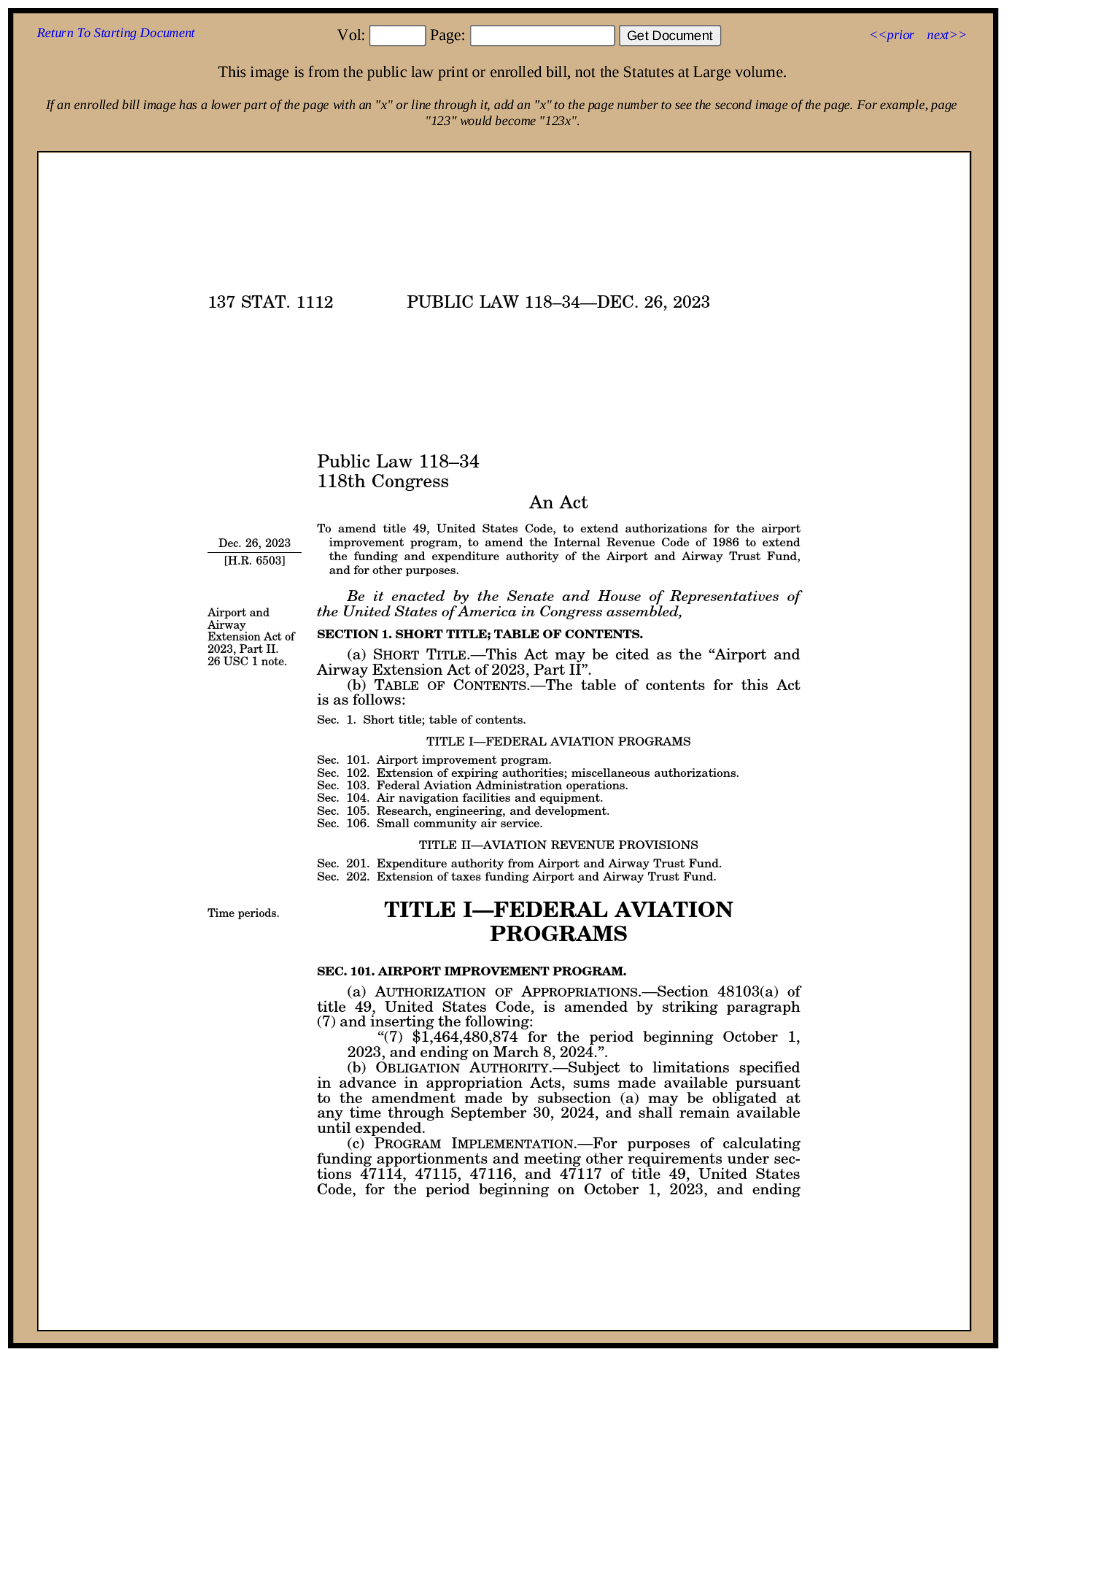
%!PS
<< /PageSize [1106 1594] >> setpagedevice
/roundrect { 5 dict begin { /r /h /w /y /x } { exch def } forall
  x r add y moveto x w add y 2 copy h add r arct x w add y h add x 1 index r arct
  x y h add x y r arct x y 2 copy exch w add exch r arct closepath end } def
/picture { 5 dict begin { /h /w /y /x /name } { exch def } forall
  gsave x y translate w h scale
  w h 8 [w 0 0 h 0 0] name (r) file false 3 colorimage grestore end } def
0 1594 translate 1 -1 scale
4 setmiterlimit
1 setgray
0 0 1106 1594 rectfill
0.824 0.706 0.549 setrgbcolor
newpath 10.5 10.5 moveto 995.5 10.5 lineto 995.5 1345.5 lineto 10.5 1345.5 lineto closepath gsave fill grestore
0 setgray
5 setlinewidth
stroke
/LiberationSerif-Italic [13.33 0 0 -13.33 0 0] selectfont
0 0 0.933 setrgbcolor
37 37 moveto (Return To Starting Document) show
/LiberationSerif-Regular [16 0 0 -16 0 0] selectfont
0 setgray
337 40 moveto (Vol:) show
1 setgray
369.5 25.5 56 20 1.5 roundrect gsave fill grestore
0.463 setgray
1 setlinewidth
stroke
0 setgray
430 40 moveto (Page:) show
1 setgray
470.5 25.5 144 20 1.5 roundrect gsave fill grestore
0.463 setgray
stroke
0.937 setgray
619.5 25.5 101 20 1.5 roundrect gsave fill grestore
0.463 setgray
stroke
/LiberationSans-Regular [13.33 0 0 -13.33 0 0] selectfont
0 setgray
627 40 moveto (Get Document) show
/LiberationSerif-Italic [13.33 0 0 -13.33 0 0] selectfont
0 0 0.933 setrgbcolor
869 39 moveto (<<prior) show
927 39 moveto (next>>) show
/LiberationSerif-Regular [16 0 0 -16 0 0] selectfont
0 setgray
218 77 moveto (This image is from the public law print or enrolled bill, not the Statutes at Large volume.) show
/LiberationSerif-Italic [13.33 0 0 -13.33 0 0] selectfont
46 109 moveto (If an enrolled bill image has a lower part of the page with an "x" or line through it, add an "x" to the page number to see the second image of the page. For example, page) show
425 125 moveto ("123" would become "123x".) show
37.5 151.5 933 1179 rectstroke
(img1.rgb) 39 153 930 1177 picture
showpage
